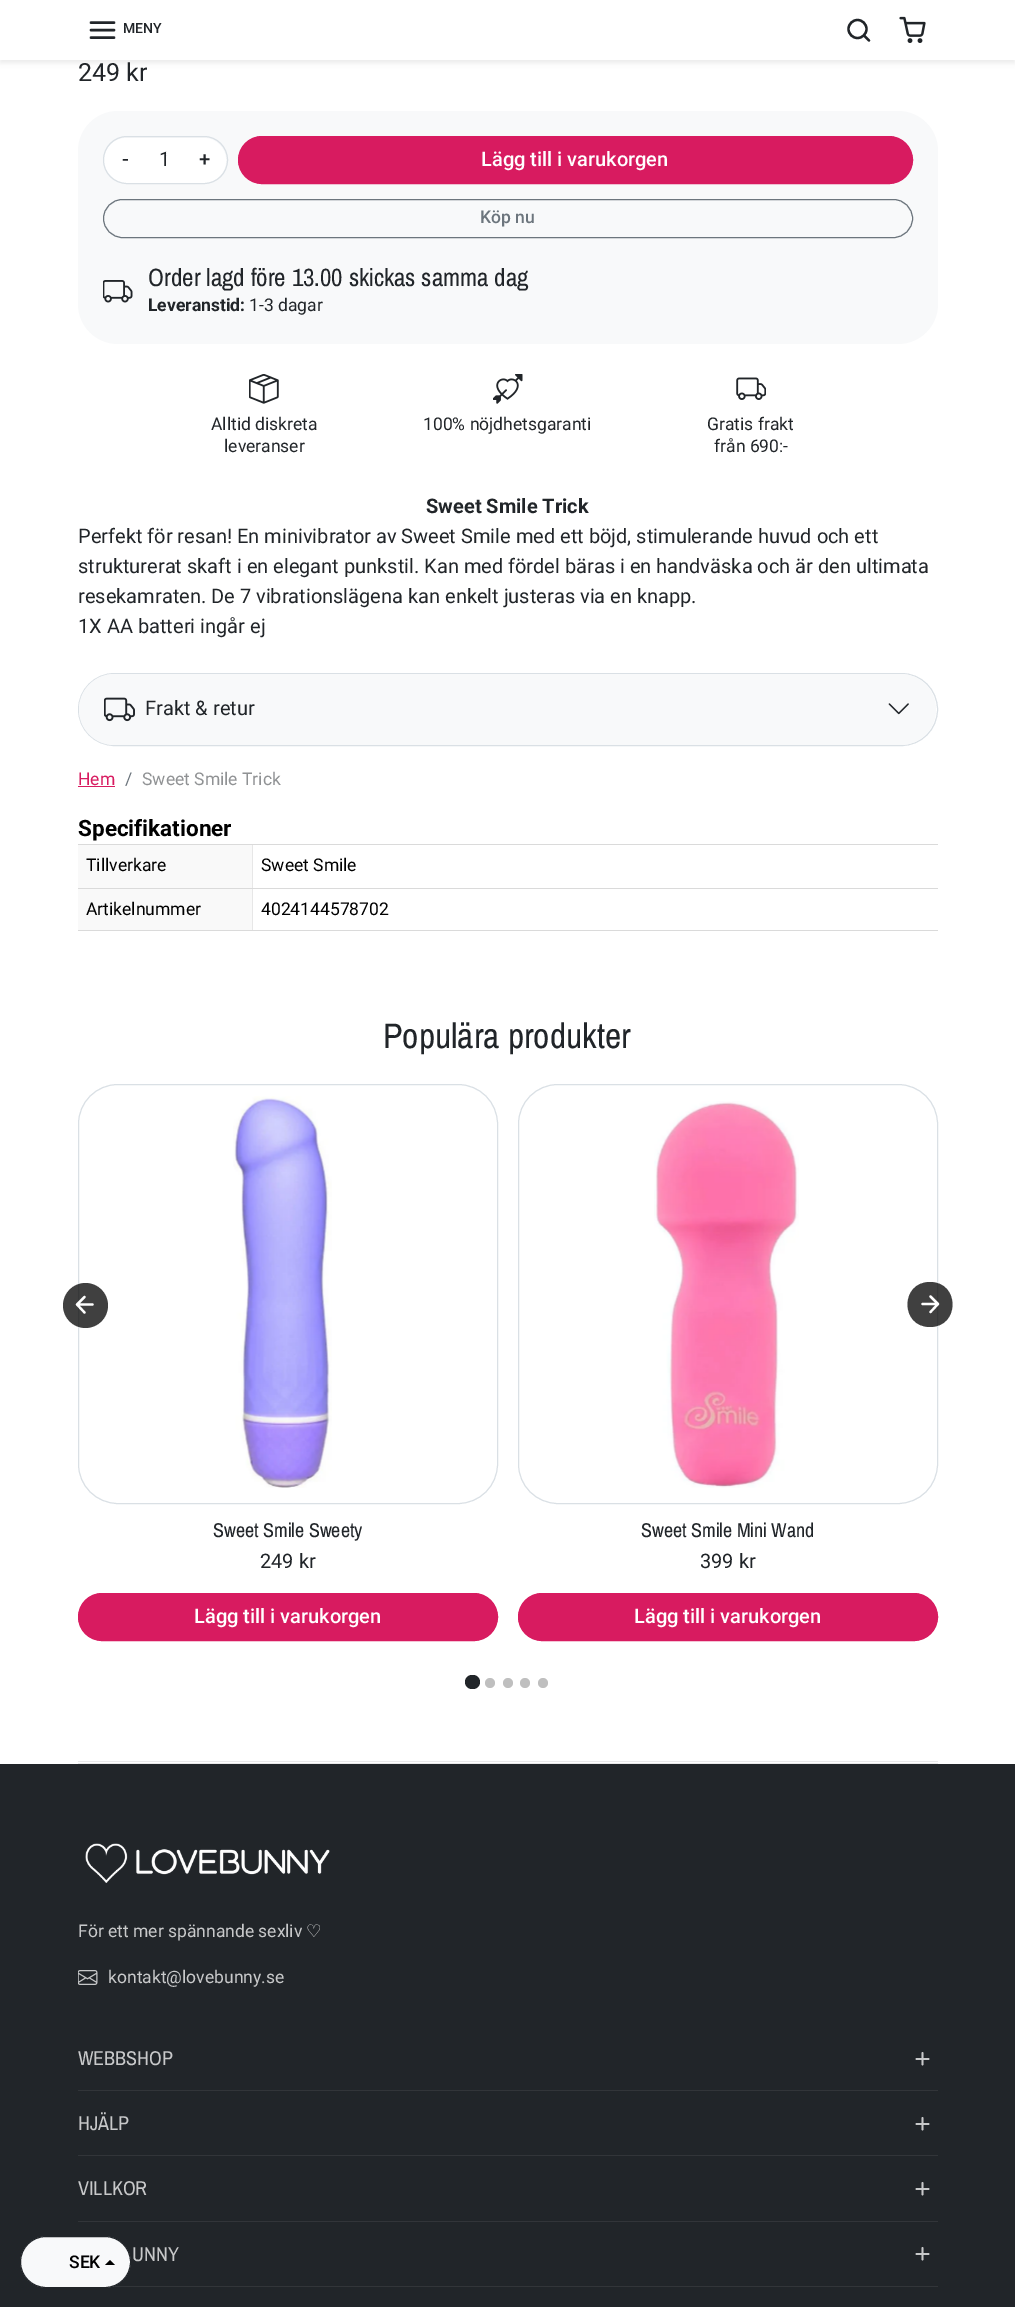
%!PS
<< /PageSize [1015 2307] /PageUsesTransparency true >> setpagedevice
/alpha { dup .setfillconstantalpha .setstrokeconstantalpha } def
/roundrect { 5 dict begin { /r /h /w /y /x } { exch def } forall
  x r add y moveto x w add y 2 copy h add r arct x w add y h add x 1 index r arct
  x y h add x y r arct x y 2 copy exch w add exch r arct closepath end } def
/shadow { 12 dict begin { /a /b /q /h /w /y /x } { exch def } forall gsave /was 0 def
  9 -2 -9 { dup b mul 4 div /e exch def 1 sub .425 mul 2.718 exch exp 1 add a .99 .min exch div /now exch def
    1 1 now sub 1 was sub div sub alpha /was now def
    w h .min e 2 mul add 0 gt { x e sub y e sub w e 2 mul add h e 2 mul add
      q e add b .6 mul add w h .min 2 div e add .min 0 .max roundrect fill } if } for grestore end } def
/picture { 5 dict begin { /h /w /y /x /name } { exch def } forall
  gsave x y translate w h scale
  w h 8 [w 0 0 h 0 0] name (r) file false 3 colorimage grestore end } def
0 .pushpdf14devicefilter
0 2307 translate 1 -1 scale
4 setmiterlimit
1 setgray
0 0 1015 2307 rectfill
0 setgray
0 3 1015 60 0 2.5 0.07 shadow
1 setgray
0 0 1015 60 rectfill
0.129 0.145 0.161 setrgbcolor
2.5 setlinewidth
1 setlinecap
1 setlinejoin
newpath 91 30 moveto 114 30 lineto 91 22.5 moveto 114 22.5 lineto 91 37.5 moveto 114 37.5 lineto stroke
/Roboto-Medium [14 0 0 -14 0 0] selectfont
123 33 moveto (MENY) show
2.3 setlinewidth
0 setlinecap
0 setlinejoin
newpath 857.5 29 9 0 360 arc closepath stroke
1 setlinecap
1 setlinejoin
newpath 869 40.5 moveto 864 35.5 lineto stroke
(img1.rgb) 899 16 27 27 picture
/Roboto-Regular [25 0 0 -25 0 0] selectfont
78 81 moveto (249 kr) show
0.973 0.976 0.98 setrgbcolor
78 111 860 233 40 roundrect fill
1 setgray
104 138 122 45 22.5 roundrect fill
0.855 0.878 0.898 setrgbcolor
1 setlinewidth
0 setlinecap
0 setlinejoin
103.5 136.5 124 47 23.5 roundrect stroke
/Roboto-Medium [20 0 0 -20 0 0] selectfont
0.129 0.145 0.161 setrgbcolor
122 166 moveto (-) show
/Roboto-Regular [20 0 0 -20 0 0] selectfont
159 166 moveto (1) show
/Roboto-Medium [20 0 0 -20 0 0] selectfont
199 166 moveto (+) show
0.847 0.106 0.376 setrgbcolor
238.5 136.5 674 47 23.5 roundrect gsave fill grestore
stroke
1 setgray
481 166 moveto (Lägg till i varukorgen) show
0.424 0.459 0.49 setrgbcolor
103.5 199.5 809 38 19 roundrect stroke
/Roboto-Medium [17.5 0 0 -17.5 0 0] selectfont
480 223 moveto (Köp nu) show
(img2.rgb) 103 280 30 23 picture
/ArchivoNarrow-Regular [25 0 0 -25 0 0] selectfont
0.129 0.145 0.161 setrgbcolor
148 286 moveto (Order lagd före 13.00 skickas samma dag) show
/Roboto-Bold [17.5 0 0 -17.5 0 0] selectfont
148 311 moveto (Leveranstid:) show
/Roboto-Regular [17.5 0 0 -17.5 0 0] selectfont
249 311 moveto (1-3 dagar) show
(img3.rgb) 249 374 30 30 picture
211 430 moveto (Alltid diskreta) show
224 452 moveto (leveranser) show
(img4.rgb) 493 374 30 30 picture
423 430 moveto (100% nöjdhetsgaranti) show
(img5.rgb) 736 377 30 23 picture
707 430 moveto (Gratis frakt) show
714 452 moveto (från 690:-) show
/Roboto-Bold [20 0 0 -20 0 0] selectfont
426 513 moveto (Sweet Smile Trick) show
/Roboto-Regular [20 0 0 -20 0 0] selectfont
78 543 moveto (Perfekt för resan! En minivibrator av Sweet Smile med ett böjd, stimulerande huvud och ett) show
78 573 moveto (strukturerat skaft i en elegant punkstil. Kan med fördel bäras i en handväska och är den ultimata) show
78 603 moveto (resekamraten. De 7 vibrationslägena kan enkelt justeras via en knapp.) show
78 633 moveto (1X AA batteri ingår ej) show
0.855 0.878 0.898 setrgbcolor
78.5 673.5 859 72 36 roundrect stroke
0.973 0.976 0.98 setrgbcolor
79 674 857 71 35.5 roundrect fill
(img6.rgb) 104 697 31 25 picture
0.129 0.145 0.161 setrgbcolor
145 715 moveto (Frakt & retur) show
(img7.rgb) 888 703 21 12 picture
/Roboto-Regular [17.5 0 0 -17.5 0 0] selectfont
0.847 0.106 0.376 setrgbcolor
78 785 moveto (Hem) show
78 786 37 1 rectfill
0.424 0.459 0.49 setrgbcolor
125 785 moveto (/) show
0.565 0.573 0.58 setrgbcolor
142 785 moveto (Sweet Smile Trick) show
/Roboto-Bold [22.5 0 0 -22.5 0 0] selectfont
0 setgray
78 836 moveto (Specifikationer) show
0.855 setgray
newpath 78 888 moveto 78 889 lineto 253 889 lineto 253 845 lineto 252 845 lineto 252 888 lineto closepath fill
0.53 alpha
0.953 setgray
78 845 175 43 rectfill
1 alpha
0.855 setgray
78 844 860 1 rectfill
/Roboto-Regular [17.5 0 0 -17.5 0 0] selectfont
0 setgray
86 871 moveto (Tillverkare) show
0.855 setgray
newpath 253 888 moveto 253 889 lineto 938 889 lineto 938 845 lineto 938 888 lineto closepath fill
0 setgray
261 871 moveto (Sweet Smile) show
0.855 setgray
newpath 78 930 moveto 78 931 lineto 253 931 lineto 253 889 lineto 252 889 lineto 252 930 lineto closepath fill
0.53 alpha
0.953 setgray
78 889 175 41 rectfill
1 alpha
0 setgray
86 915 moveto (Artikelnummer) show
0.855 setgray
newpath 253 930 moveto 253 931 lineto 938 931 lineto 938 889 lineto 938 930 lineto closepath fill
0 setgray
261 915 moveto (4024144578702) show
/ArchivoNarrow-Regular [35.5 0 0 -35.5 0 0] selectfont
0.129 0.145 0.161 setrgbcolor
383 1048 moveto (Populära produkter) show
0.855 0.878 0.898 setrgbcolor
78.5 1084.5 419 419 39.5 roundrect stroke
0.75 alpha
0 setgray
newpath 85.5 1305.5 22.5 0 360 arc closepath fill
1 alpha
1 setgray
2.2 setlinewidth
1 setlinecap
1 setlinejoin
newpath 92.5 1304.5 moveto 78 1304.5 lineto 84.5 1297 moveto 77 1304.5 lineto 84.5 1312.5 lineto stroke
0.855 0.878 0.898 setrgbcolor
1 setlinewidth
0 setlinecap
0 setlinejoin
518.5 1084.5 419 419 39.5 roundrect stroke
0.75 alpha
0 setgray
newpath 930 1327 moveto 900 1327 900 1282 930 1282 curveto 960 1282 960 1327 930 1327 curveto closepath fill
1 alpha
1 setgray
2.2 setlinewidth
1 setlinecap
1 setlinejoin
newpath 922.5 1304 moveto 937 1304 lineto 930.5 1312 moveto 938 1304 lineto 930.5 1296.5 lineto stroke
(img8.rgb) 233 1096 99 392 picture
/ArchivoNarrow-Regular [20 0 0 -20 0 0] selectfont
0.129 0.145 0.161 setrgbcolor
213 1537 moveto (Sweet Smile Sweety) show
/Roboto-Regular [20 0 0 -20 0 0] selectfont
260 1568 moveto (249 kr) show
0.847 0.106 0.376 setrgbcolor
78.5 1593.5 419 47 23.5 roundrect gsave fill grestore
1 setlinewidth
0 setlinecap
0 setlinejoin
stroke
/Roboto-Medium [20 0 0 -20 0 0] selectfont
1 setgray
194 1623 moveto (Lägg till i varukorgen) show
(img9.rgb) 654 1101 145 387 picture
/ArchivoNarrow-Regular [20 0 0 -20 0 0] selectfont
0.129 0.145 0.161 setrgbcolor
641 1537 moveto (Sweet Smile Mini Wand) show
/Roboto-Regular [20 0 0 -20 0 0] selectfont
700 1568 moveto (399 kr) show
0.847 0.106 0.376 setrgbcolor
518.5 1593.5 419 47 23.5 roundrect gsave fill grestore
stroke
/Roboto-Medium [20 0 0 -20 0 0] selectfont
1 setgray
634 1623 moveto (Lägg till i varukorgen) show
0.129 0.145 0.161 setrgbcolor
465 1675 15 14 7 roundrect fill
0.749 setgray
newpath 490 1683 5 0 360 arc closepath fill
newpath 508 1683 5 0 360 arc closepath fill
newpath 525 1683 5 0 360 arc closepath fill
newpath 543 1683 5 0 360 arc closepath fill
0.914 0.914 0.918 setrgbcolor
78 1761 860 1 rectfill
78 1763 860 1 rectfill
0.129 0.145 0.161 setrgbcolor
0 1764 1015 543 rectfill
(img10.rgb) 85 1843 245 40 picture
/Roboto-Regular [17.5 0 0 -17.5 0 0] selectfont
0.784 0.788 0.792 setrgbcolor
78 1937 moveto (För ett mer spännande sexliv) show
/DejaVuSans-Regular [17.5 0 0 -17.5 0 0] selectfont
306 1937 moveto (♡) show
(img11.rgb) 78 1970 20 15 picture
/Roboto-Regular [17.5 0 0 -17.5 0 0] selectfont
108 1983 moveto (kontakt@lovebunny.se) show
0.196 0.208 0.224 setrgbcolor
78 2090 860 1 rectfill
/ArchivoNarrow-Regular [20 0 0 -20 0 0] selectfont
0.784 0.788 0.792 setrgbcolor
78 2065 moveto (WEBBSHOP) show
1.7 setlinewidth
1 setlinecap
1 setlinejoin
newpath 922.5 2053 moveto 922.5 2064.5 lineto 916.5 2059 moveto 928.5 2059 lineto stroke
0.196 0.208 0.224 setrgbcolor
78 2155 860 1 rectfill
0.784 0.788 0.792 setrgbcolor
78 2130 moveto (HJÄLP) show
newpath 922.5 2118 moveto 922.5 2129.5 lineto 916.5 2124 moveto 928.5 2124 lineto stroke
0.196 0.208 0.224 setrgbcolor
78 2221 860 1 rectfill
0.784 0.788 0.792 setrgbcolor
78 2195 moveto (VILLKOR) show
newpath 922.5 2183 moveto 922.5 2194.5 lineto 916.5 2189 moveto 928.5 2189 lineto stroke
0.196 0.208 0.224 setrgbcolor
112 2286 826 1 rectfill
0.784 0.788 0.792 setrgbcolor
132 2261 moveto (UNNY) show
newpath 922.5 2248 moveto 922.5 2259.5 lineto 916.5 2254 moveto 928.5 2254 lineto stroke
0.973 0.976 0.98 setrgbcolor
20.5 2236.5 110 51 25.5 roundrect gsave fill grestore
0.129 0.145 0.161 setrgbcolor
1 setlinewidth
0 setlinecap
0 setlinejoin
stroke
/Roboto-Medium [17.5 0 0 -17.5 0 0] selectfont
0 setgray
69 2268 moveto (SEK) show
newpath 115 2265 moveto 105 2265 lineto 110 2260 lineto closepath fill
.poppdf14devicefilter showpage
